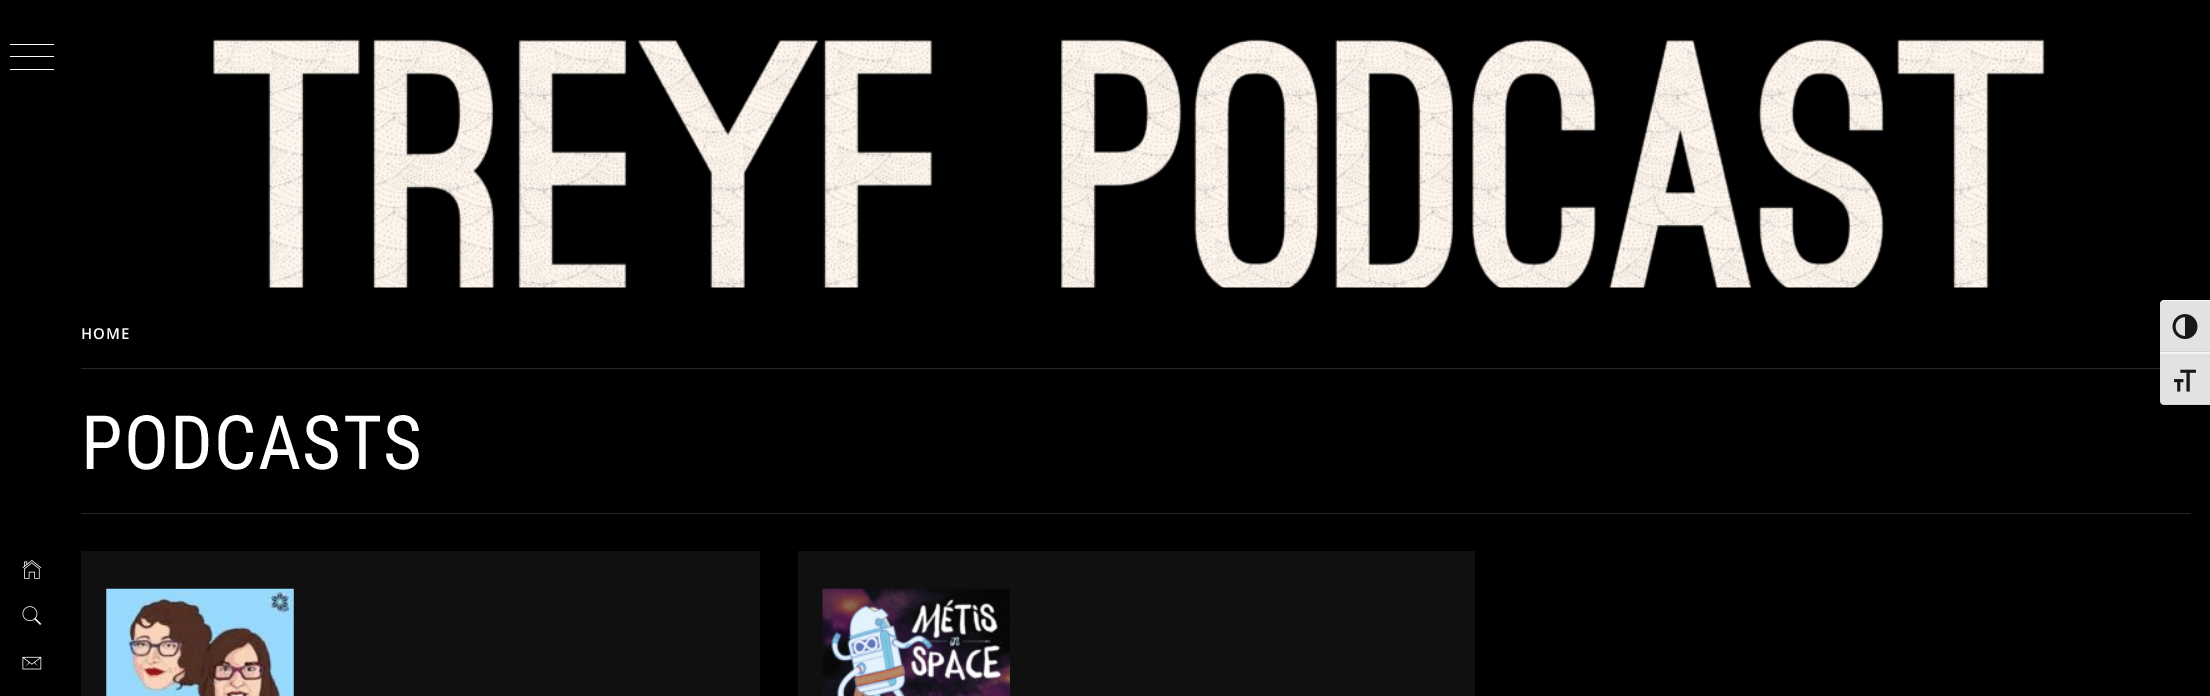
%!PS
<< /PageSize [2210 696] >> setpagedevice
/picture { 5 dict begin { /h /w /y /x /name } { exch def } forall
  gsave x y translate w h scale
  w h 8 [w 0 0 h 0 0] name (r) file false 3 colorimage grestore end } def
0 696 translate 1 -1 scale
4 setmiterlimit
0 setgray
0 0 2210 696 rectfill
1 setgray
10 44 44 1 rectfill
10 56 44 1 rectfill
10 69 44 1 rectfill
(img1.rgb) 22 560 20 19 picture
(img2.rgb) 22 606 20 19 picture
(img3.rgb) 22 656 20 14 picture
(img4.rgb) 213 39 1832 249 picture
0.153 setgray
81 513 2110 1 rectfill
81 368 2079 1 rectfill
/OpenSans-SemiBold [15 0 0 -15 0 0] selectfont
1 setgray
81 339 moveto 1 0 (HOME) ashow
/RobotoCondensed-Regular [75 0 0 -75 0 0] selectfont
81 469 moveto 1.25 0 (PODCASTS) ashow
0.063 setgray
81 551 679 145 rectfill
(img5.rgb) 106 588 188 108 picture
798 551 677 145 rectfill
(img6.rgb) 822 588 188 108 picture
0.886 setgray
newpath 2165 300 moveto 2210 300 lineto 2210 353 lineto 2160 353 lineto 2160 305 lineto 2160 302 2162 300 2165 300 curveto closepath fill
0.961 setgray
newpath 2165 301 moveto 2210 301 lineto 2210 300 lineto 2165 300 lineto 2162 300 2160 302 2160 305 curveto 2160 303 2162 301 2165 301 curveto closepath fill
0.824 setgray
2160 351 50 1 rectfill
(img7.rgb) 2172 314 26 25 picture
0.886 setgray
newpath 2160 353 moveto 2210 353 lineto 2210 405 lineto 2165 405 lineto 2162 405 2160 403 2160 400 curveto closepath fill
0.961 setgray
2160 352 50 2 rectfill
0.824 setgray
newpath 2210 405 moveto 2210 404 lineto 2165 404 lineto 2162 404 2160 402 2160 400 curveto 2160 403 2162 405 2165 405 curveto closepath fill
(img8.rgb) 2174 369 22 23 picture
showpage
